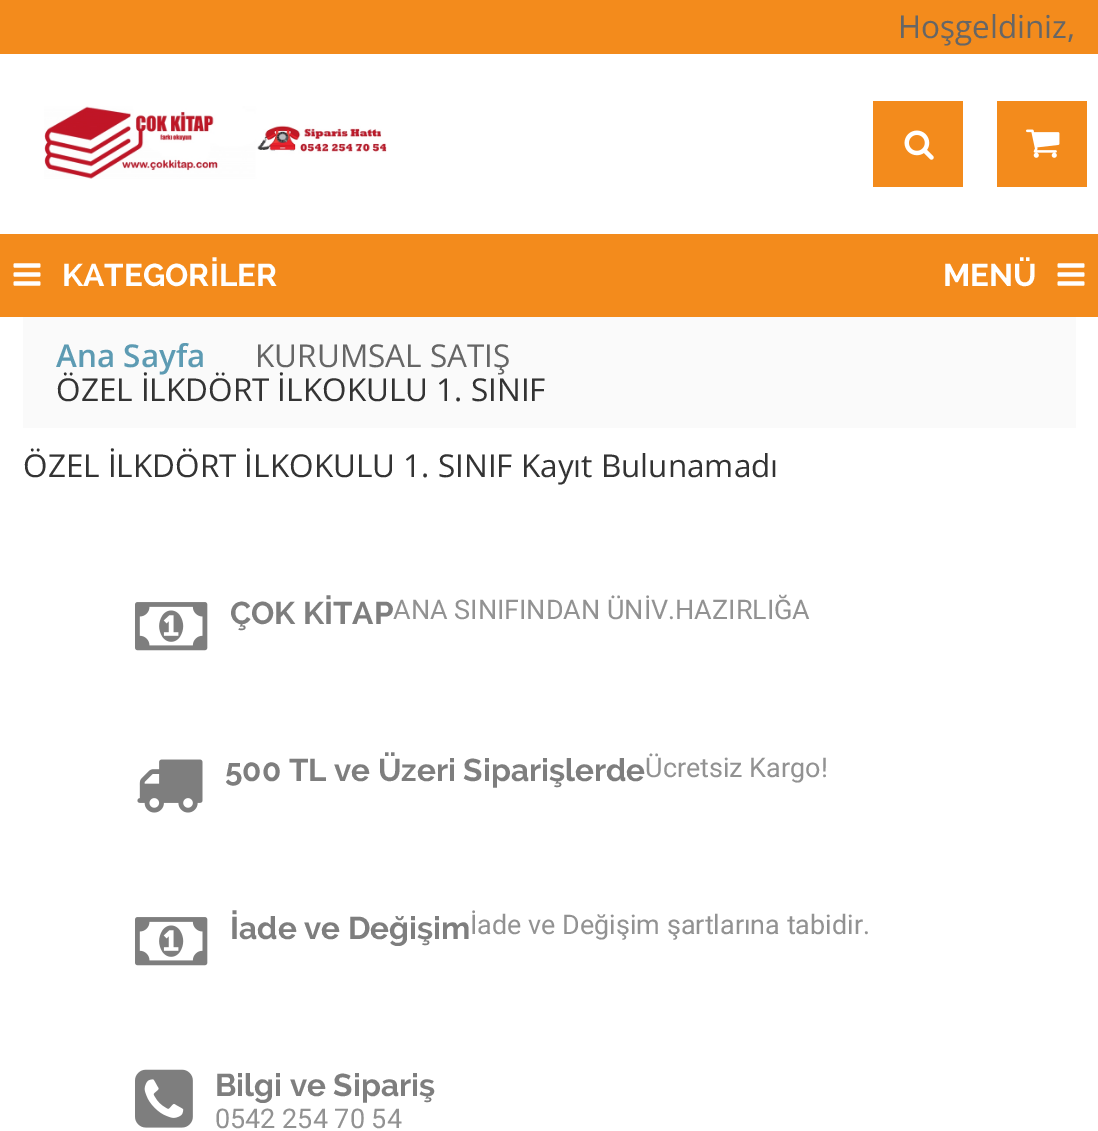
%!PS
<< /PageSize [1098 1131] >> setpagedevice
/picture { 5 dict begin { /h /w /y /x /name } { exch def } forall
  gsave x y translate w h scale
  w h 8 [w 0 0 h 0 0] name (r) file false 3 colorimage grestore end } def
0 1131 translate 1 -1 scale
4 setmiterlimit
1 setgray
0 0 1098 1131 rectfill
0.953 0.545 0.11 setrgbcolor
0 0 1098 54 rectfill
/OpenSans-Regular [31.5 0 0 -31.5 0 0] selectfont
0.4 setgray
898 38 moveto (Hoşgeldiniz,) show
(img1.rgb) 44 106 343 73 picture
0.953 0.545 0.11 setrgbcolor
873 101 90 86 rectfill
(img2.rgb) 904 130 30 30 picture
997 101 90 86 rectfill
(img3.rgb) 1026 129 34 29 picture
0 234 1098 83 rectfill
(img4.rgb) 13 263 28 23 picture
/Raleway-Bold [31.5 0 0 -31.5 0 0] selectfont
1 setgray
62 286 moveto (KATEGORİLER) show
943 286 moveto (MENÜ) show
(img4.rgb) 1057 263 28 23 picture
0.98 setgray
23 317 1053 111 rectfill
/OpenSans-SemiBold [31.5 0 0 -31.5 0 0] selectfont
0.365 0.608 0.702 setrgbcolor
56 367 moveto (Ana Sayfa) show
/OpenSans-Regular [31.5 0 0 -31.5 0 0] selectfont
0.4 setgray
255 367 moveto (KURUMSAL SATIŞ) show
0.2 setgray
56 401 moveto (ÖZEL İLKDÖRT İLKOKULU 1. SINIF) show
23 477 moveto (ÖZEL İLKDÖRT İLKOKULU 1. SINIF Kayıt Bulunamadı) show
(img5.rgb) 135 602 73 49 picture
/Raleway-Bold [31.5 0 0 -31.5 0 0] selectfont
0.494 setgray
230 624 moveto (ÇOK KİTAP) show
/Roboto-Regular [27 0 0 -27 0 0] selectfont
0.573 setgray
393 619 moveto (ANA SINIFINDAN ÜNİV.HAZIRLIĞA) show
(img6.rgb) 137 759 66 54 picture
/Raleway-Bold [31.5 0 0 -31.5 0 0] selectfont
0.494 setgray
225 781 moveto (500 TL ve Üzeri Siparişlerde) show
/Roboto-Regular [27 0 0 -27 0 0] selectfont
0.573 setgray
645 777 moveto (Ücretsiz Kargo!) show
(img5.rgb) 135 917 73 49 picture
/Raleway-Bold [31.5 0 0 -31.5 0 0] selectfont
0.494 setgray
230 939 moveto (İade ve Değişim) show
/Roboto-Regular [27 0 0 -27 0 0] selectfont
0.573 setgray
470 934 moveto (İade ve Değişim şartlarına tabidir.) show
(img7.rgb) 135 1069 58 59 picture
/Raleway-Bold [31.5 0 0 -31.5 0 0] selectfont
0.494 setgray
215 1096 moveto (Bilgi ve Sipariş) show
/Roboto-Regular [27 0 0 -27 0 0] selectfont
0.573 setgray
215 1128 moveto (0542 254 70 54) show
showpage
